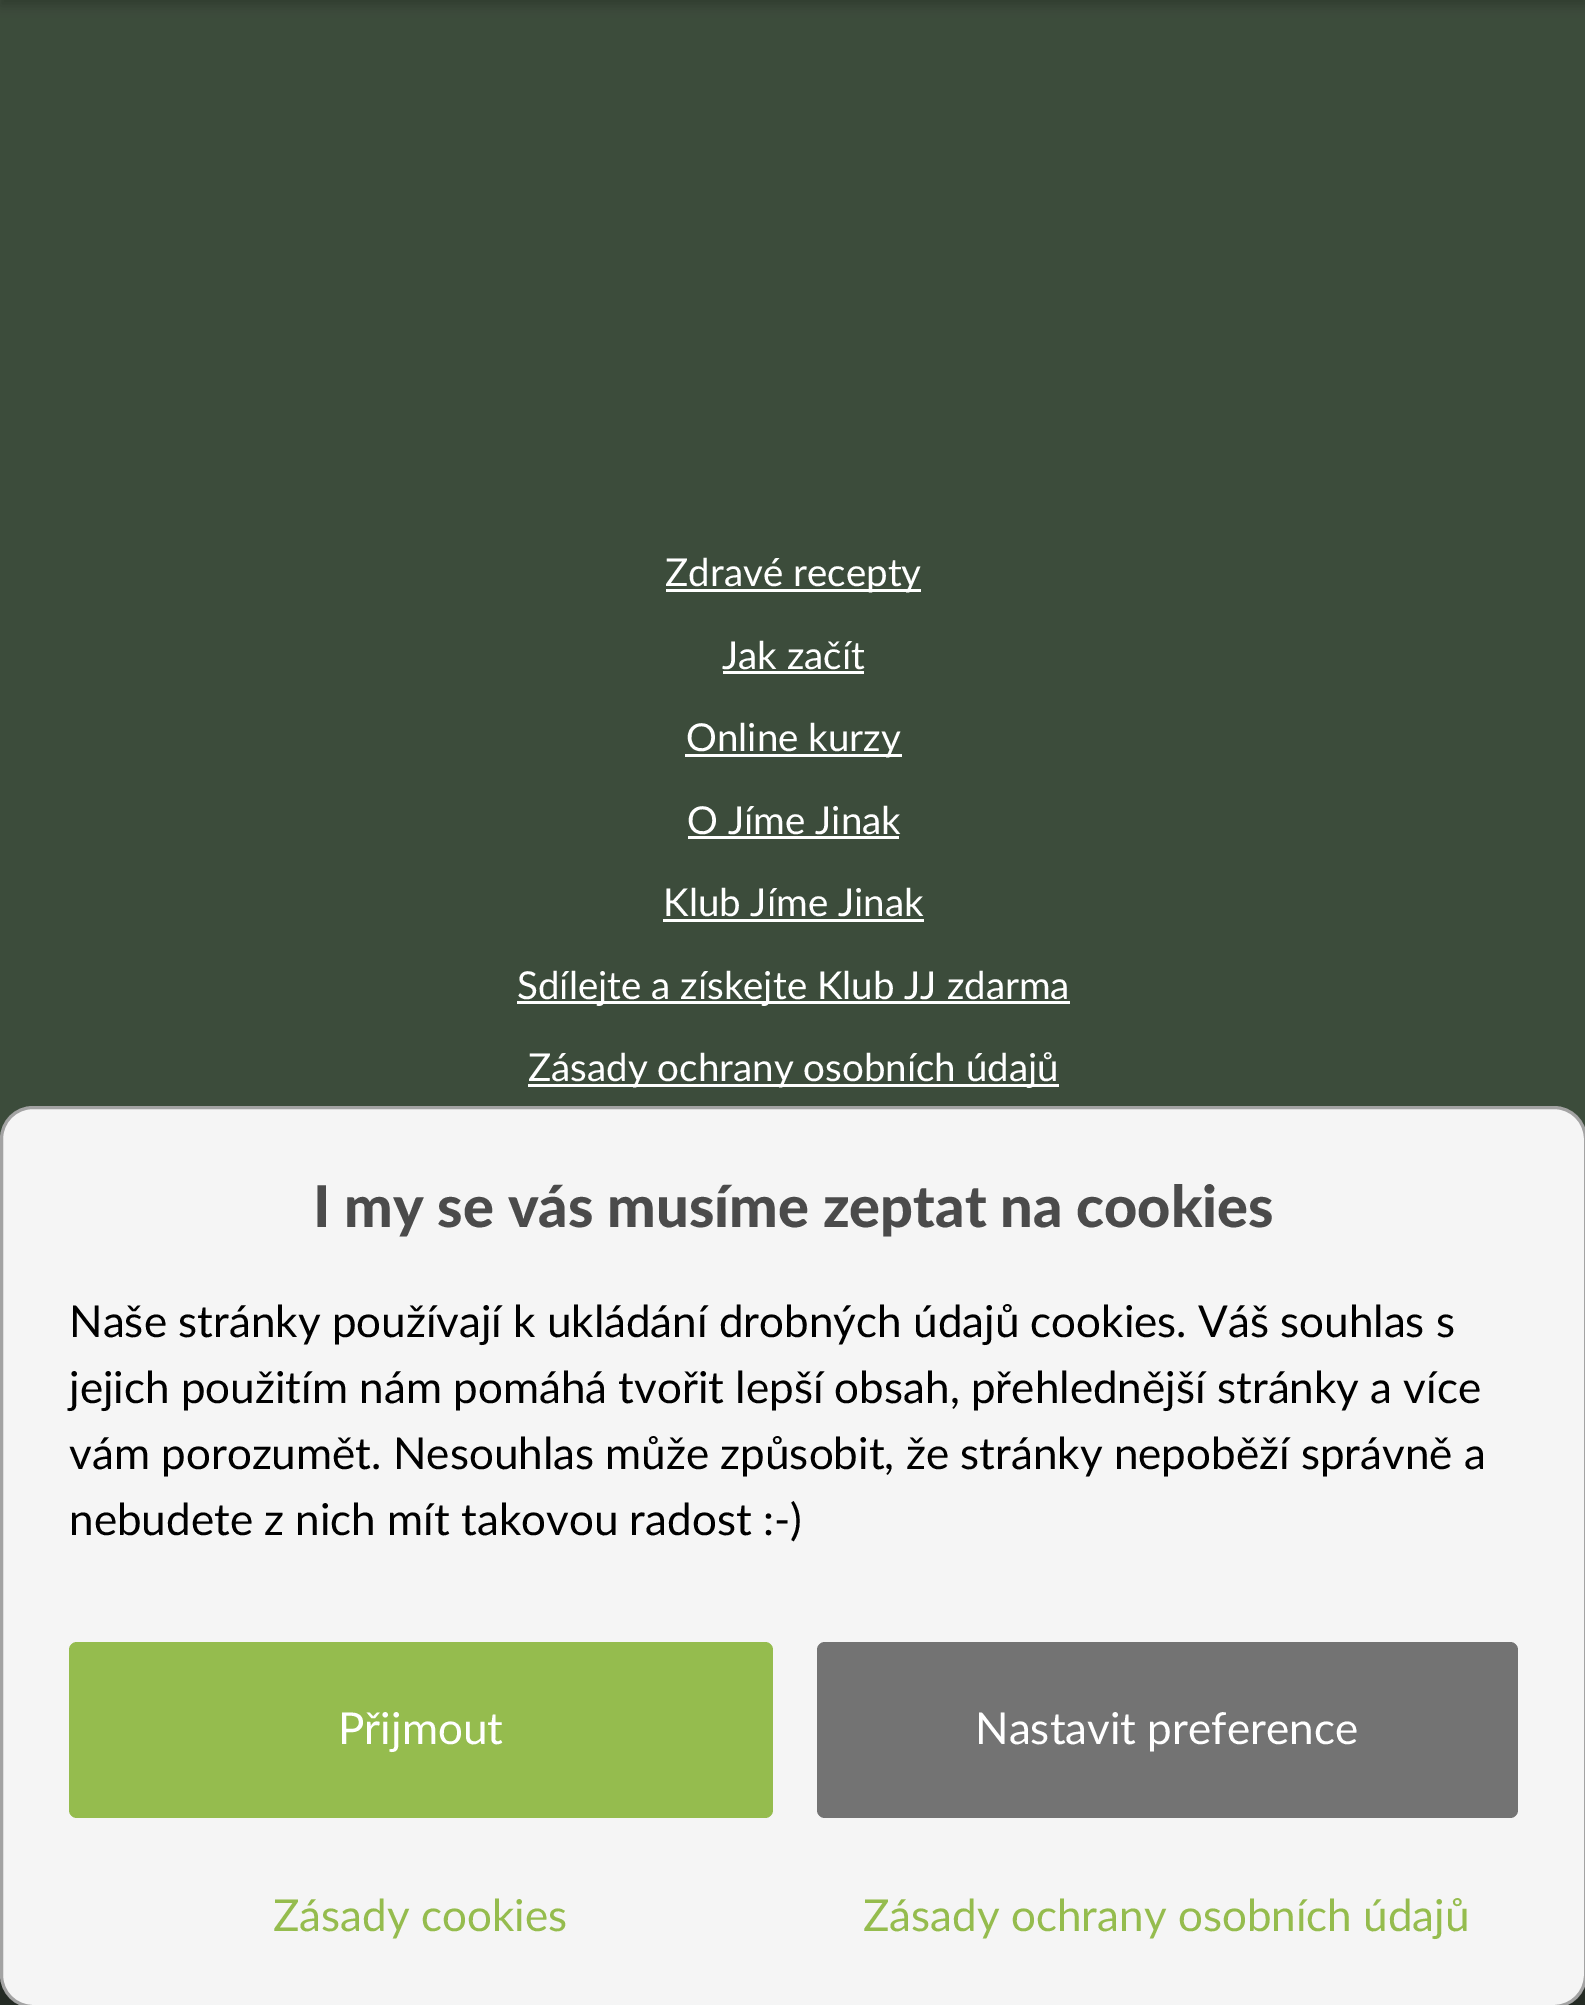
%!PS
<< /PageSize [1585 2005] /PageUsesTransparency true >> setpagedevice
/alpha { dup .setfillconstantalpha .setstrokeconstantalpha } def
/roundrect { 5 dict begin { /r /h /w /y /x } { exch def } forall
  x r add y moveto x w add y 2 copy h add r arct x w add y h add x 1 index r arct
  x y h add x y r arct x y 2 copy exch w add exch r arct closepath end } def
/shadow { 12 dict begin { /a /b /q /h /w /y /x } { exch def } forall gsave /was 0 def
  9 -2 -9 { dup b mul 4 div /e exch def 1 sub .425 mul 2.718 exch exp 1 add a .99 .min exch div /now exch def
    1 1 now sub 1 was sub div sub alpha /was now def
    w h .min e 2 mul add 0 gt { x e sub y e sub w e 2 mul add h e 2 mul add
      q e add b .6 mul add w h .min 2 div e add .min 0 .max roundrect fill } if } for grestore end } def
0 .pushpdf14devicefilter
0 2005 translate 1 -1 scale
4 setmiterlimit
0.235 0.298 0.231 setrgbcolor
0 0 1585 2005 rectfill
0 setgray
0 -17 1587 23 0 5.5 0.21 shadow
1 setgray
666 589 255 3 rectfill
/Lato-Regular [38.5 0 0 -38.5 0 0] selectfont
665 586 moveto (Zdravé recepty) show
722 669 moveto (Jak začít) show
723 671 141 3 rectfill
685 754 217 3 rectfill
686 751 moveto (Online kurzy) show
687 834 moveto (O Jíme Jinak) show
688 836 211 3 rectfill
663 916 moveto (Klub Jíme Jinak) show
663 919 261 3 rectfill
517 1001 553 3 rectfill
517 999 moveto (Sdílejte a získejte Klub JJ zdarma) show
528 1084 531 3 rectfill
528 1081 moveto (Zásady ochrany osobních údajů) show
0.141 0.169 0.141 setrgbcolor
0 1975 1585 30 rectfill
0.961 setgray
1.5 1107.5 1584 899 31.5 roundrect gsave fill grestore
0.639 setgray
3 setlinewidth
stroke
/Lato-Black [57.75 0 0 -57.75 0 0] selectfont
0.294 setgray
313 1227 moveto (I my se vás musíme zeptat na cookies) show
/Lato-Regular [44 0 0 -44 0 0] selectfont
0 setgray
69 1337 moveto (Naše stránky používají k ukládání drobných údajů cookies. Váš souhlas s) show
69 1403 moveto (jejich použitím nám pomáhá tvořit lepší obsah, přehlednější stránky a více) show
69 1469 moveto (vám porozumět. Nesouhlas může způsobit, že stránky nepoběží správně a) show
69 1535 moveto (nebudete z nich mít takovou radost :-\)) show
0.584 0.737 0.306 setrgbcolor
69 1642 704 176 8 roundrect fill
1 setgray
338 1744 moveto (Přijmout) show
0.451 setgray
817 1642 701 176 8 roundrect fill
1 setgray
975 1744 moveto (Nastavit preference) show
0.584 0.737 0.306 setrgbcolor
273 1931 moveto (Zásady cookies) show
863 1931 moveto (Zásady ochrany osobních údajů) show
.poppdf14devicefilter showpage
